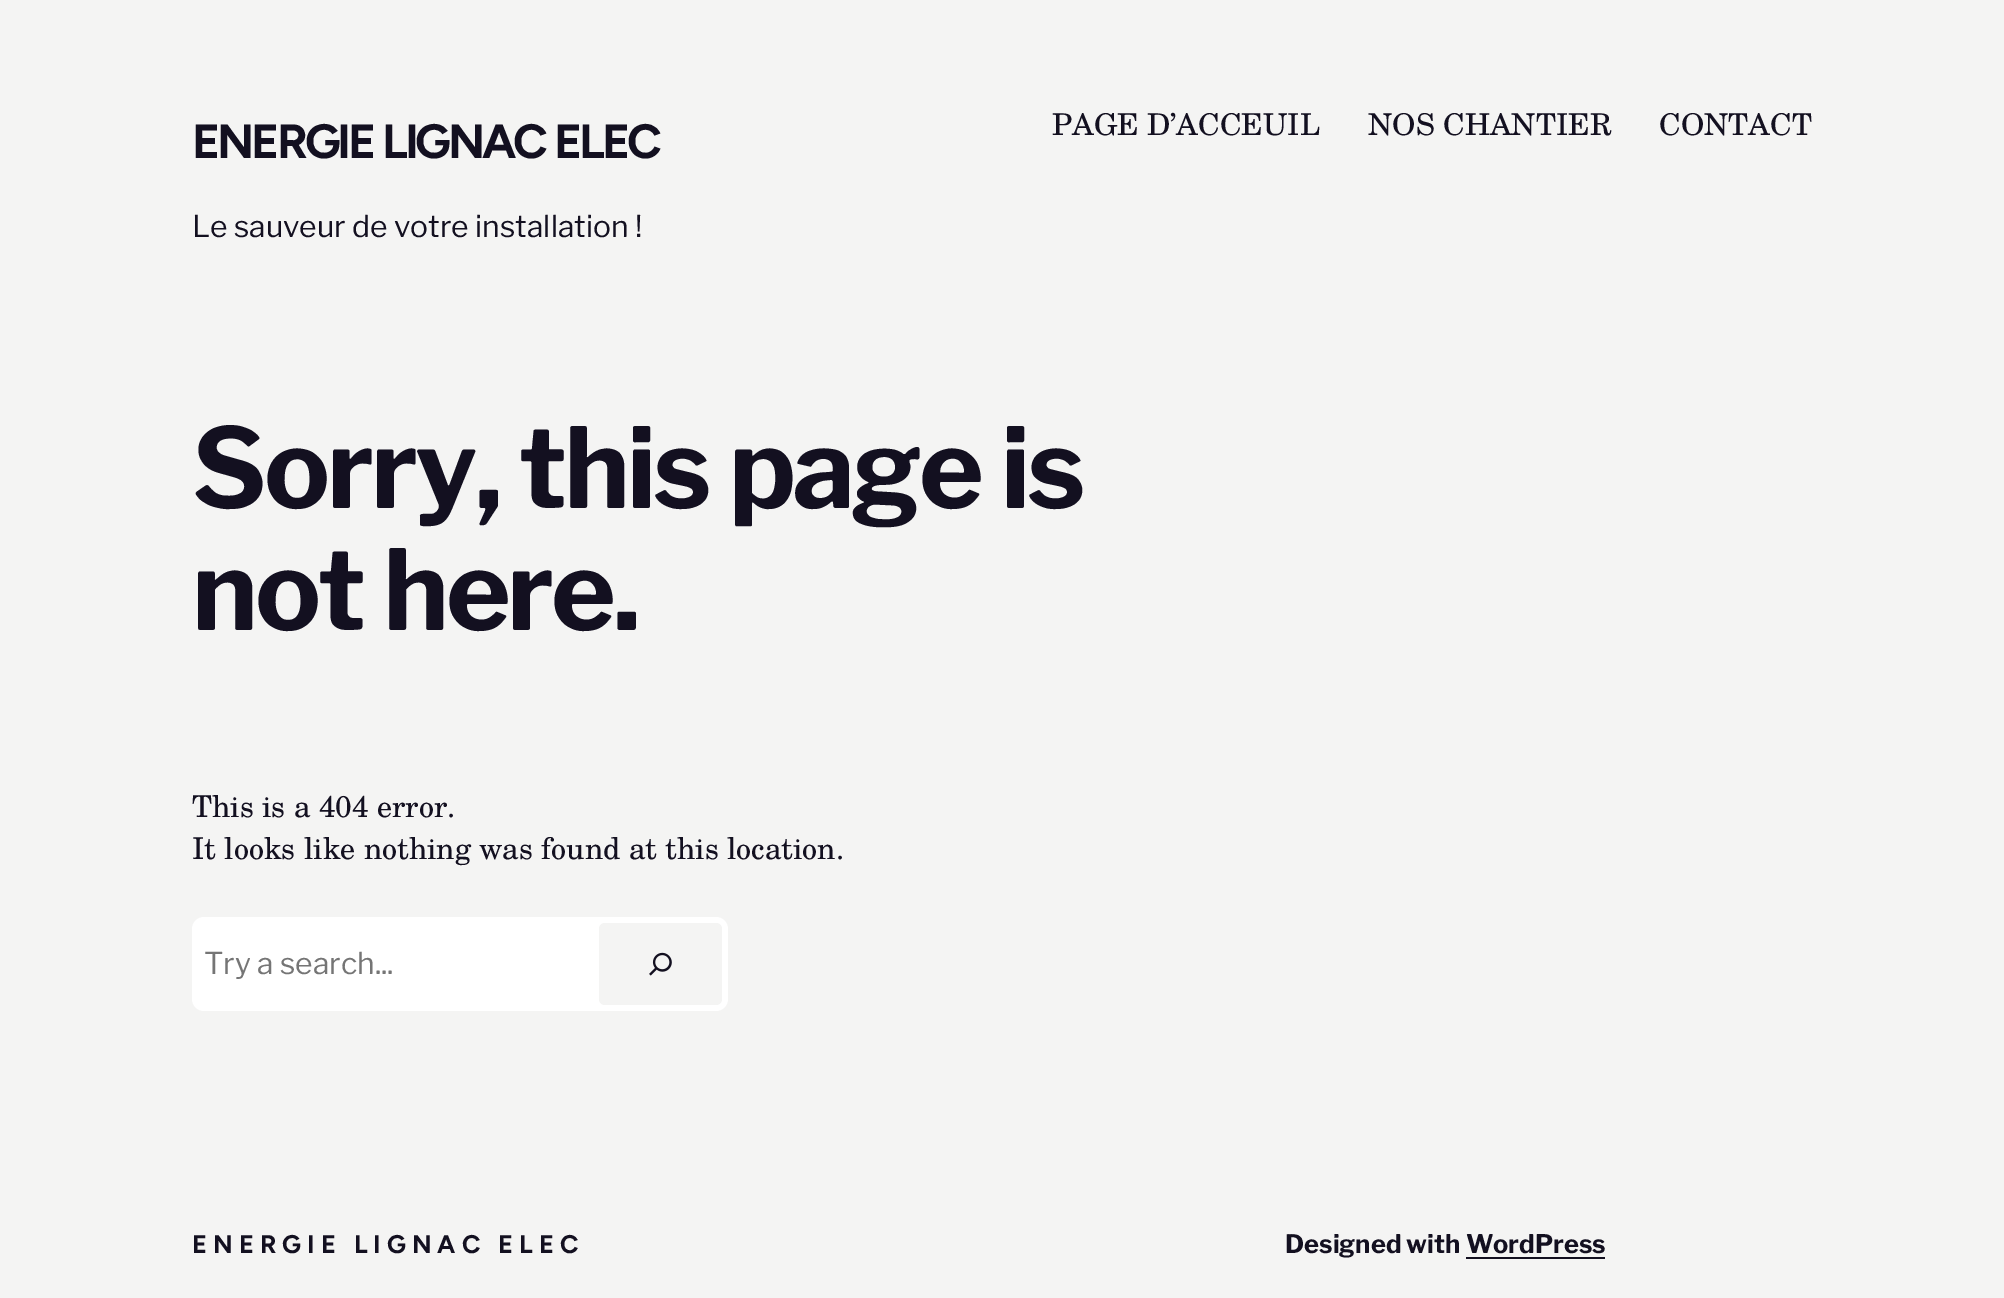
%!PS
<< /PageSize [2004 1298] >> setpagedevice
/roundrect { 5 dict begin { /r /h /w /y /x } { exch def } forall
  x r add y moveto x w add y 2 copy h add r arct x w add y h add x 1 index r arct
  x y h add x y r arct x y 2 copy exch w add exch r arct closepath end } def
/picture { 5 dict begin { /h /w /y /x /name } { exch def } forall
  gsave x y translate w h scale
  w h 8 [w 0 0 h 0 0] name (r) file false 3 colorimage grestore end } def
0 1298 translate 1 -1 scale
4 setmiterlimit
0.957 0.957 0.953 setrgbcolor
0 0 2004 1298 rectfill
/Figtree-Bold [48 0 0 -48 0 0] selectfont
0.075 0.063 0.125 setrgbcolor
192 158 moveto -3 0 (ENERGIE LIGNAC ELEC) ashow
/LibreFranklin-Regular [30 0 0 -30 0 0] selectfont
192 237 moveto (Le sauveur de votre installation !) show
/TeXGyreSchola-Regular [30 0 0 -30 0 0] selectfont
1052 135 moveto (PAGE D’ACCEUIL) show
1368 135 moveto (NOS CHANTIER) show
1659 135 moveto (CONTACT) show
/LibreFranklin-Bold [110.5 0 0 -110.5 0 0] selectfont
192 508 moveto -3 0 (Sorry, this page is) ashow
192 630 moveto -3 0 (not here.) ashow
/TeXGyreSchola-Regular [30 0 0 -30 0 0] selectfont
192 817 moveto (This is a 404 error.) show
192 859 moveto (It looks like nothing was found at this location.) show
1 setgray
192 917 536 94 12 roundrect fill
/LibreFranklin-Regular [30 0 0 -30 0 0] selectfont
0.459 setgray
204 974 moveto (Try a search...) show
0.957 0.957 0.953 setrgbcolor
599 923 123 82 6 roundrect fill
(img1.rgb) 649 952 23 24 picture
/Figtree-Bold [25.5 0 0 -25.5 0 0] selectfont
0.075 0.063 0.125 setrgbcolor
192 1253 moveto 6 0 (ENERGIE LIGNAC ELEC) ashow
/LibreFranklin-Bold [25.5 0 0 -25.5 0 0] selectfont
1285 1253 moveto (Designed with WordPress) show
1466 1257 139 2 rectfill
showpage
